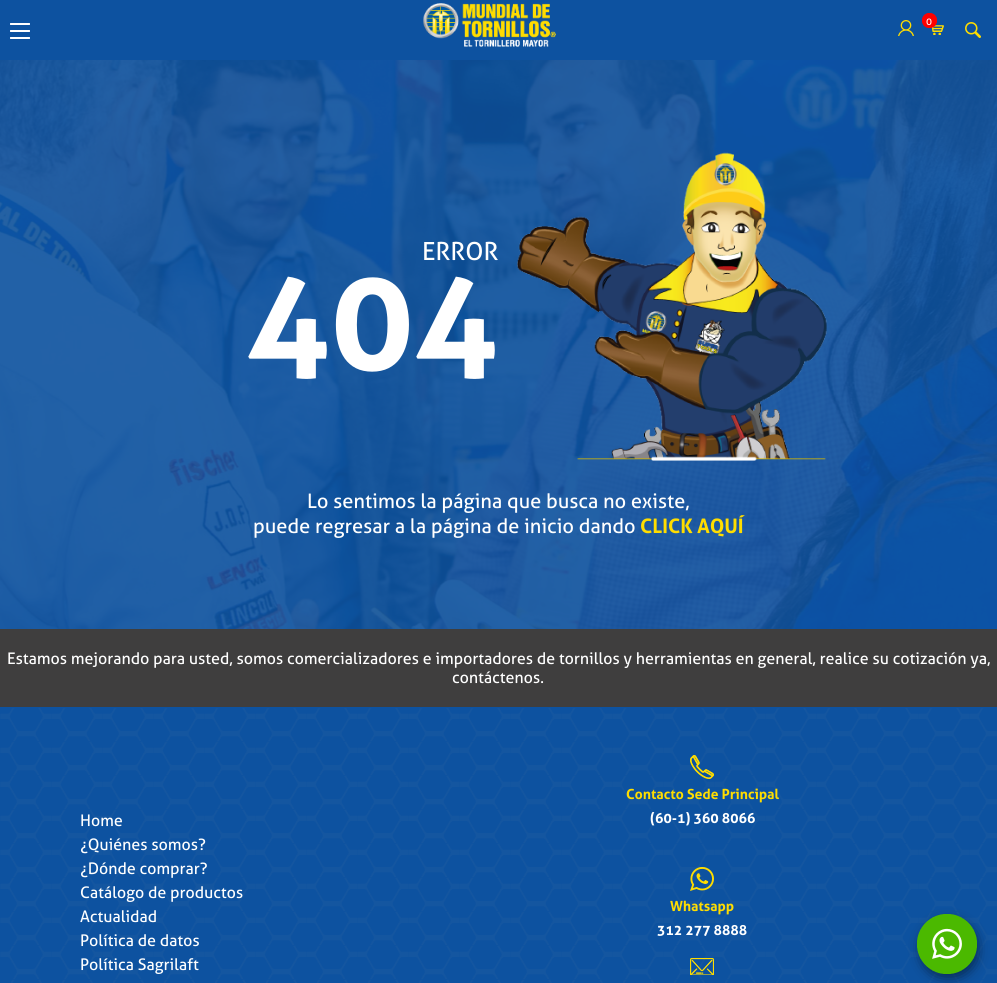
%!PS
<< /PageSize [997 983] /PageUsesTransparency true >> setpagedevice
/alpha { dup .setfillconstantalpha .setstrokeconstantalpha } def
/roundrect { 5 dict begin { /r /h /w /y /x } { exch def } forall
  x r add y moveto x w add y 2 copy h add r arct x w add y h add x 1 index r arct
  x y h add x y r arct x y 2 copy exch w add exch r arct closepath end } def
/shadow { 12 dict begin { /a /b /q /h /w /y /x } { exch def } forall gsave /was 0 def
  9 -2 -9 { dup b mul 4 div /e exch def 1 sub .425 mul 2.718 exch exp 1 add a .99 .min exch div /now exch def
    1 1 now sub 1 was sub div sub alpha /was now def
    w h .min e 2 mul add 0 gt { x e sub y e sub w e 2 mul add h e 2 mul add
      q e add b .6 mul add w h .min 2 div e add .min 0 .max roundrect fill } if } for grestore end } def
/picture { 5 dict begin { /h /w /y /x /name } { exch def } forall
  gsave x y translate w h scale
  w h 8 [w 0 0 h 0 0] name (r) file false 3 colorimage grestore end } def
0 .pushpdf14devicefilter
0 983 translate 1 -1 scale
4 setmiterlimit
0.247 0.243 0.243 setrgbcolor
0 0 997 983 rectfill
0.051 0.322 0.627 setrgbcolor
0 0 997 60 rectfill
1 setgray
10 23 20 2 1 roundrect fill
10 30 20 2 1 roundrect fill
10 37 20 2 1 roundrect fill
(img1.rgb) 423 3 133 44 picture
(img2.rgb) 898 20 16 16 picture
(img3.rgb) 931 25 13 10 picture
1 0 0 setrgbcolor
newpath 929.5 20.5 7.5 0 360 arc closepath fill
(img4.rgb) 926 18 6 8 picture
(img5.rgb) 965 22 16 16 picture
0.051 0.322 0.627 setrgbcolor
0 707 997 276 rectfill
(img17.rgb) 0 708 997 275 picture
0 setgray
919 919 60 60 30 5 0.4 shadow
0.294 0.725 0 setrgbcolor
newpath 947 944 30 0 360 arc closepath fill
(img6.rgb) 932 928 30 31 picture
(img7.rgb) 0 60 997 569 picture
(img8.rgb) 424 241 74 20 picture
(img9.rgb) 248 276 247 103 picture
(img10.rgb) 517 152 310 309 picture
(img11.rgb) 308 493 381 20 picture
(img12.rgb) 254 518 265 20 picture
(img13.rgb) 524 518 111 16 picture
(img14.rgb) 641 515 104 22 picture
(img15.rgb) 8 652 982 16 picture
(img16.rgb) 452 671 92 13 picture
(img18.rgb) 81 814 41 13 picture
(img19.rgb) 81 838 125 16 picture
(img20.rgb) 81 862 126 16 picture
(img21.rgb) 80 886 163 16 picture
(img22.rgb) 80 910 76 13 picture
(img23.rgb) 81 934 118 13 picture
(img24.rgb) 81 958 118 16 picture
(img25.rgb) 690 755 24 24 picture
(img26.rgb) 626 788 153 15 picture
(img27.rgb) 650 812 105 14 picture
(img28.rgb) 690 867 24 24 picture
(img29.rgb) 670 900 64 15 picture
(img30.rgb) 657 924 90 12 picture
(img31.rgb) 690 958 24 17 picture
.poppdf14devicefilter showpage
